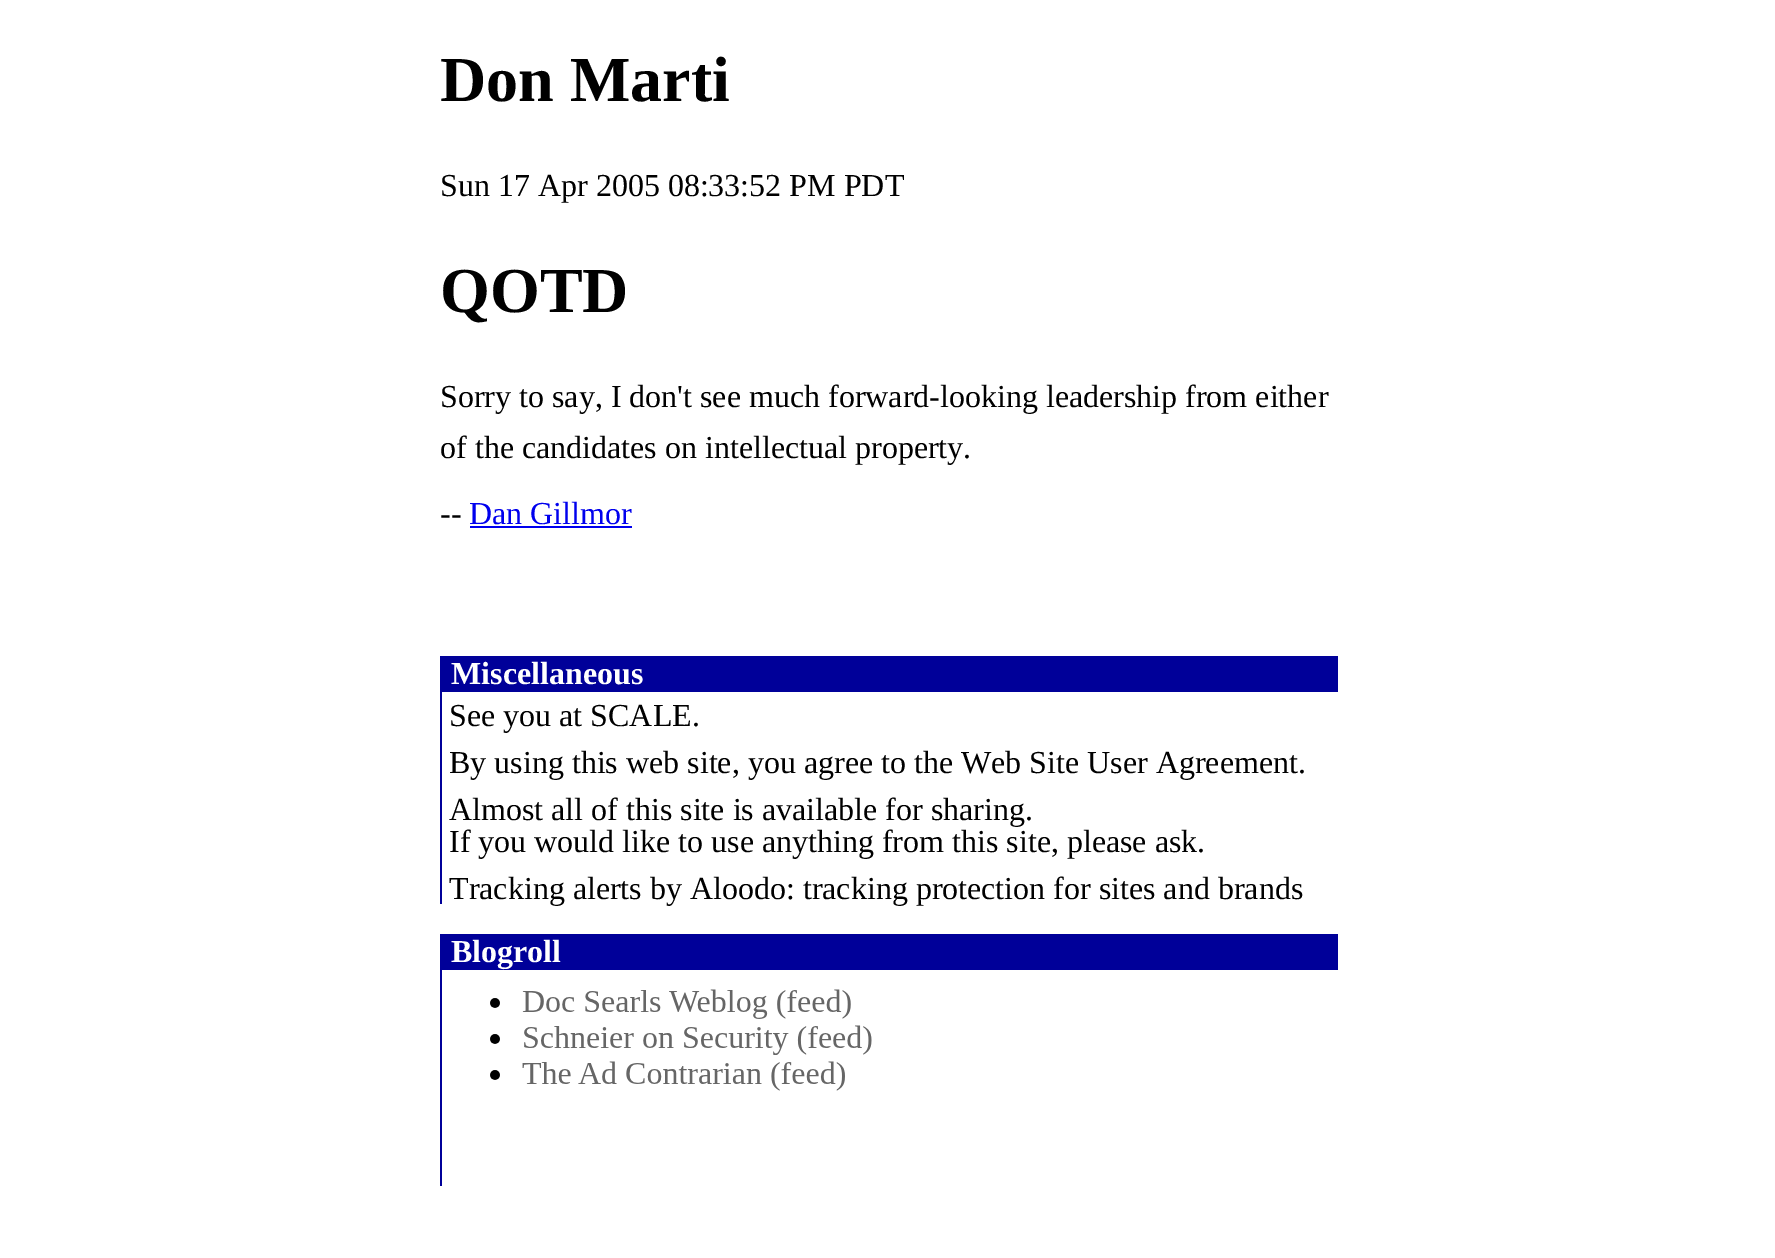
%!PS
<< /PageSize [1775 1258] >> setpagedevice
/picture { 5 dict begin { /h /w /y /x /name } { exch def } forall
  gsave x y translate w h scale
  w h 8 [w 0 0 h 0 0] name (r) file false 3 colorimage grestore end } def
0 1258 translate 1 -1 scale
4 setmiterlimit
1 setgray
0 0 1775 1258 rectfill
/LiberationSerif-Bold [64 0 0 -64 0 0] selectfont
0 setgray
440 101 moveto (Don Marti) show
/LiberationSerif-Regular [32 0 0 -32 0 0] selectfont
440 196 moveto (Sun 17 Apr 2005 08:33:52 PM PDT) show
/LiberationSerif-Bold [64 0 0 -64 0 0] selectfont
440 312 moveto (QOTD) show
/LiberationSerif-Regular [32 0 0 -32 0 0] selectfont
440 407 moveto (Sorry to say, I don't see much forward-looking leadership from either) show
440 458 moveto (of the candidates on intellectual property.) show
440 524 moveto (--) show
0 0 0.933 setrgbcolor
469 524 moveto (Dan Gillmor) show
470 526 162 2 rectfill
0 0 0.6 setrgbcolor
440 656 2 248 rectfill
442 656 896 36 rectfill
/LiberationSerif-Bold [32 0 0 -32 0 0] selectfont
1 setgray
451 684 moveto (Miscellaneous) show
/LiberationSerif-Regular [32 0 0 -32 0 0] selectfont
0 setgray
449 726 moveto (See you at SCALE.) show
449 773 moveto (By using this web site, you agree to the Web Site User Agreement.) show
449 820 moveto (Almost all of this site is available for sharing.) show
449 852 moveto (If you would like to use anything from this site, please ask.) show
449 899 moveto (Tracking alerts by Aloodo: tracking protection for sites and brands) show
0 0 0.6 setrgbcolor
440 934 2 252 rectfill
442 934 896 36 rectfill
/LiberationSerif-Bold [32 0 0 -32 0 0] selectfont
1 setgray
451 962 moveto (Blogroll) show
(img1.rgb) 490 989 382 102 picture
showpage
